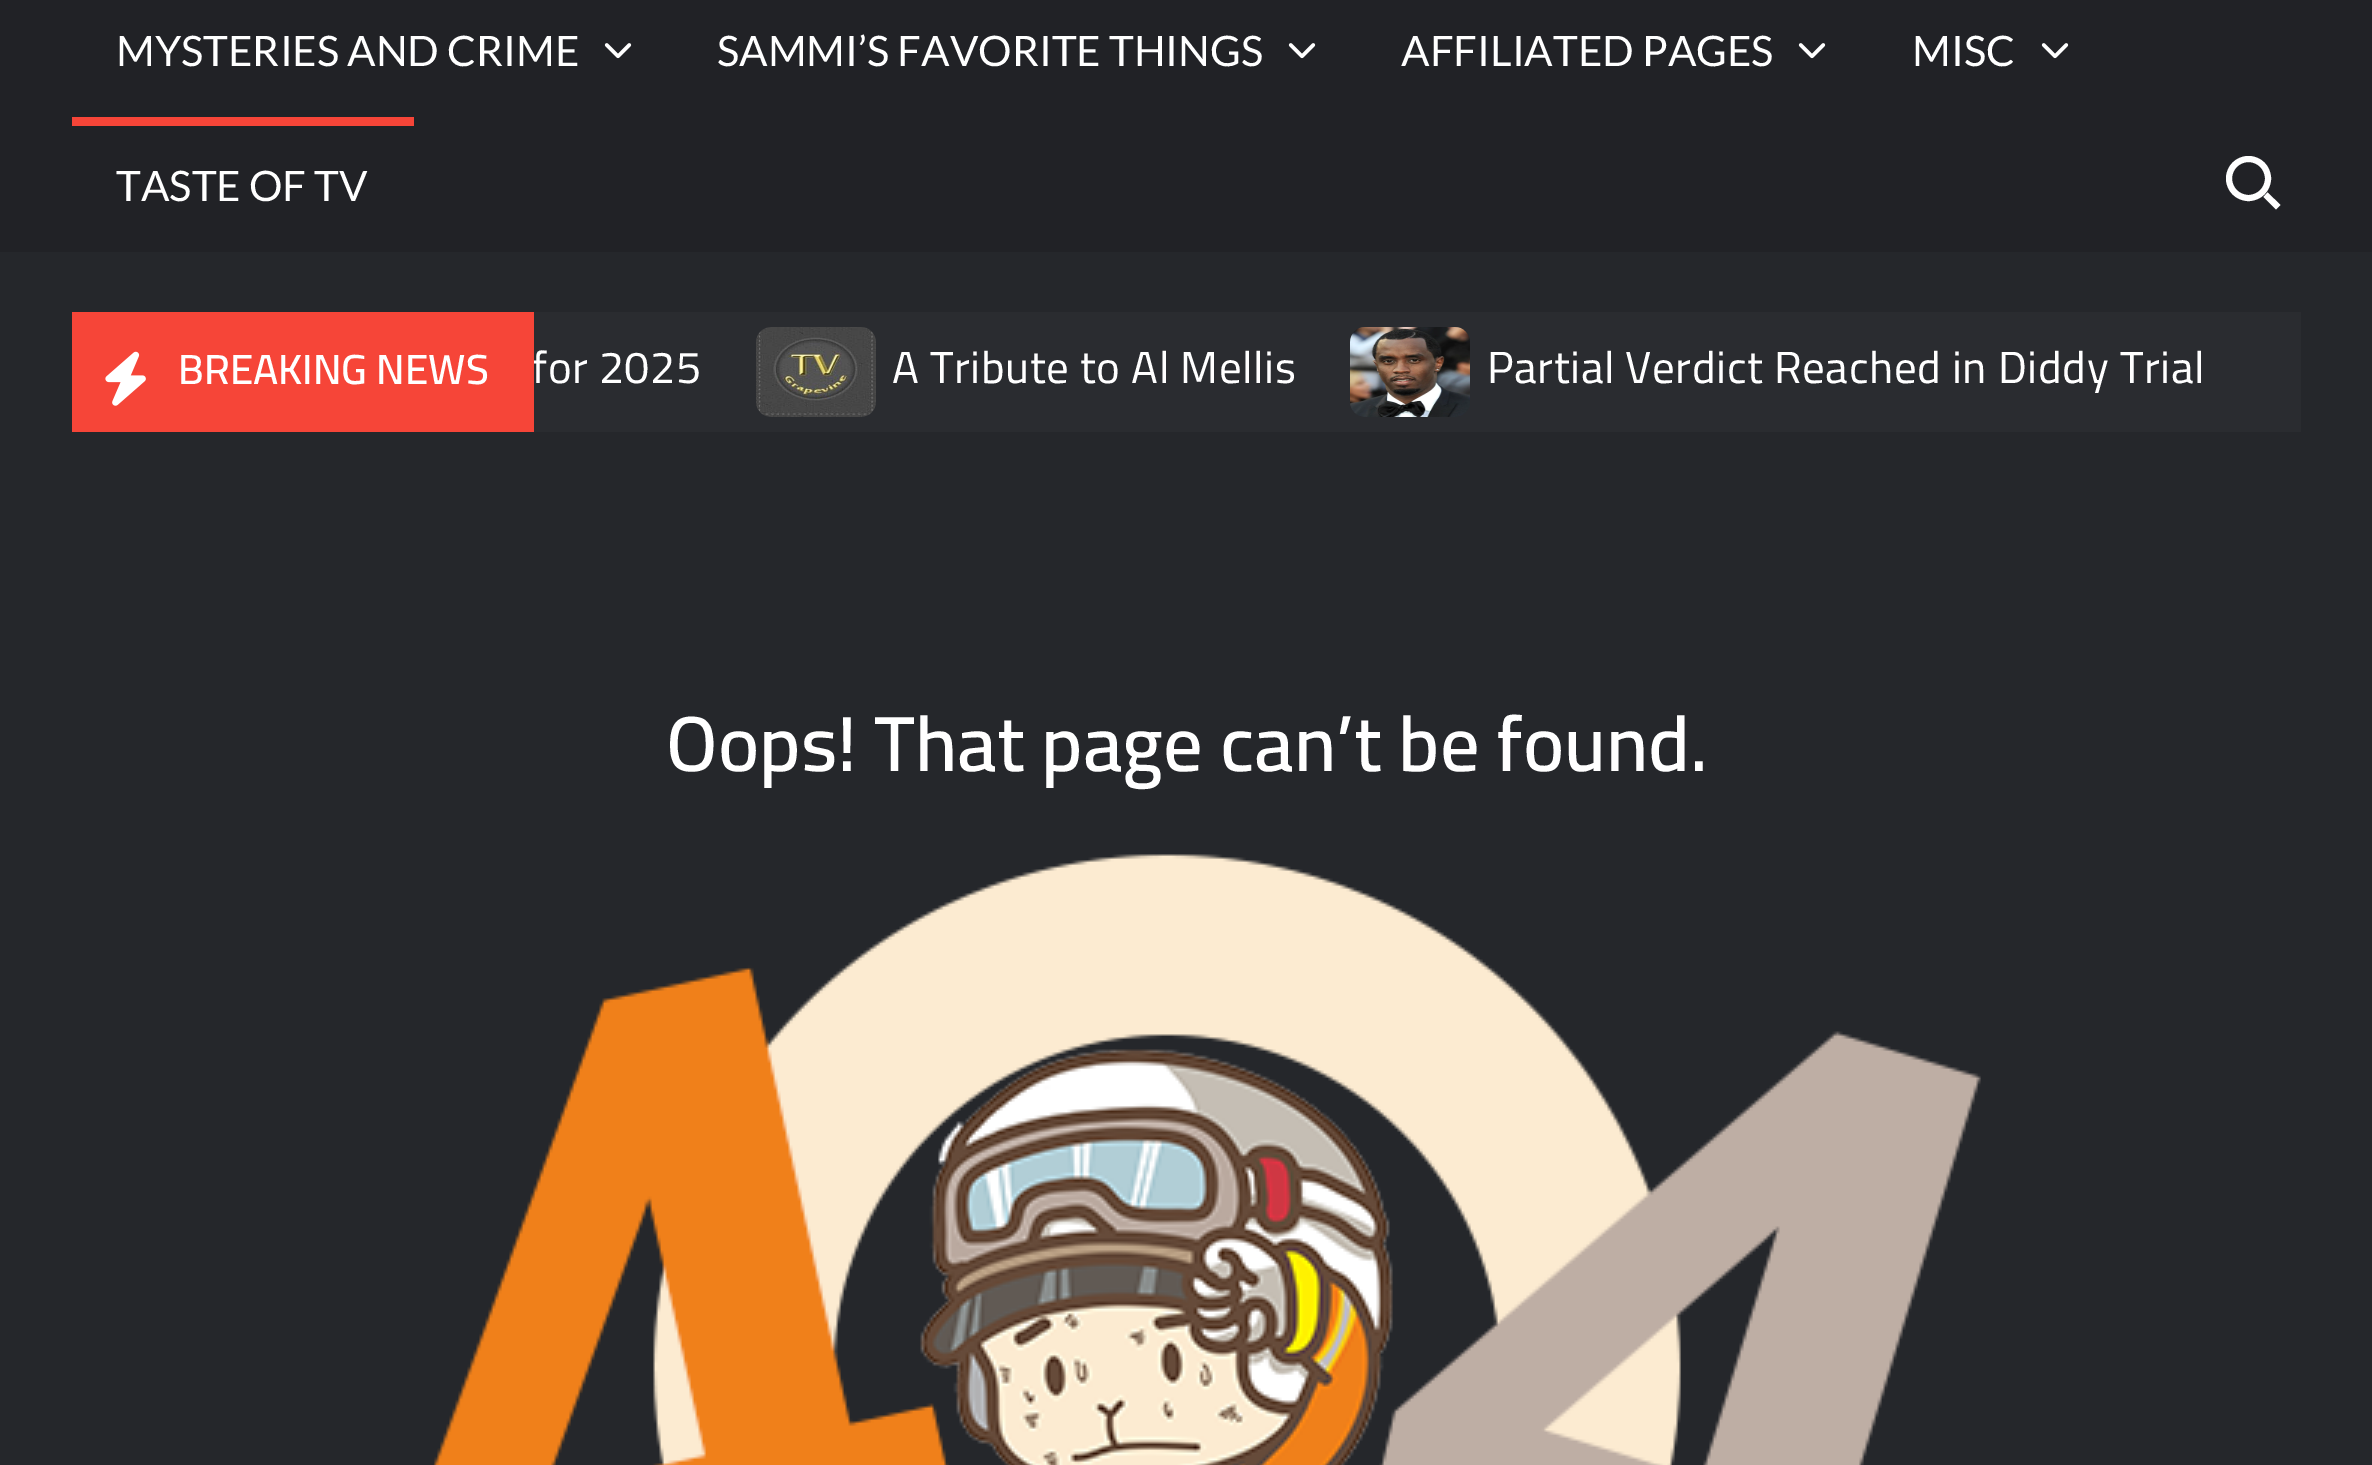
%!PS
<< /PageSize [2372 1465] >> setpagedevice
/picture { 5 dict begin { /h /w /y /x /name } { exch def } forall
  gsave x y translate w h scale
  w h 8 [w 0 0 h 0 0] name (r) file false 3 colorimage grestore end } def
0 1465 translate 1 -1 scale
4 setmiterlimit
0.145 0.153 0.169 setrgbcolor
0 0 2372 1465 rectfill
0.129 0.133 0.149 setrgbcolor
0 0 2372 252 rectfill
/Lato-Regular [42 0 0 -42 0 0] selectfont
1 setgray
116 66 moveto (MYSTERIES AND CRIME) show
(img1.rgb) 604 43 28 16 picture
717 66 moveto (SAMMI’S FAVORITE THINGS) show
(img1.rgb) 1288 43 28 16 picture
1401 66 moveto (AFFILIATED PAGES) show
(img1.rgb) 1798 43 28 16 picture
1912 66 moveto (MISC) show
(img1.rgb) 2041 43 28 16 picture
0.965 0.271 0.22 setrgbcolor
72 117 342 9 rectfill
1 setgray
116 201 moveto (TASTE OF TV) show
6 setlinewidth
newpath 2248.5 178.5 19.5 0 360 arc closepath stroke
newpath 2267.5 192.5 moveto 2280.5 205 lineto 2276 209.5 lineto 2263.5 197 lineto closepath fill
0.165 0.173 0.188 setrgbcolor
534 312 1767 120 rectfill
/Cairo-Regular [45 0 0 -45 0 0] selectfont
1 setgray
532 383 moveto 0.6 0 (for 2025) ashow
0.965 0.271 0.22 setrgbcolor
72 312 462 120 rectfill
(img2.rgb) 105 351 41 55 picture
/Cairo-SemiBold [42 0 0 -42 0 0] selectfont
1 setgray
178 384 moveto (BREAKING NEWS) show
(img3.rgb) 756 327 120 90 picture
/Cairo-Regular [45 0 0 -45 0 0] selectfont
892 383 moveto 0.6 0 (A Tribute to Al Mellis) ashow
(img4.rgb) 1350 327 120 90 picture
1487 383 moveto 0.6 0 (Partial Verdict Reached in Diddy Trial) ashow
/Cairo-SemiBold [78 0 0 -78 0 0] selectfont
666 771 moveto (Oops! That page can’t be found.) show
(img5.rgb) 433 854 1548 611 picture
showpage
